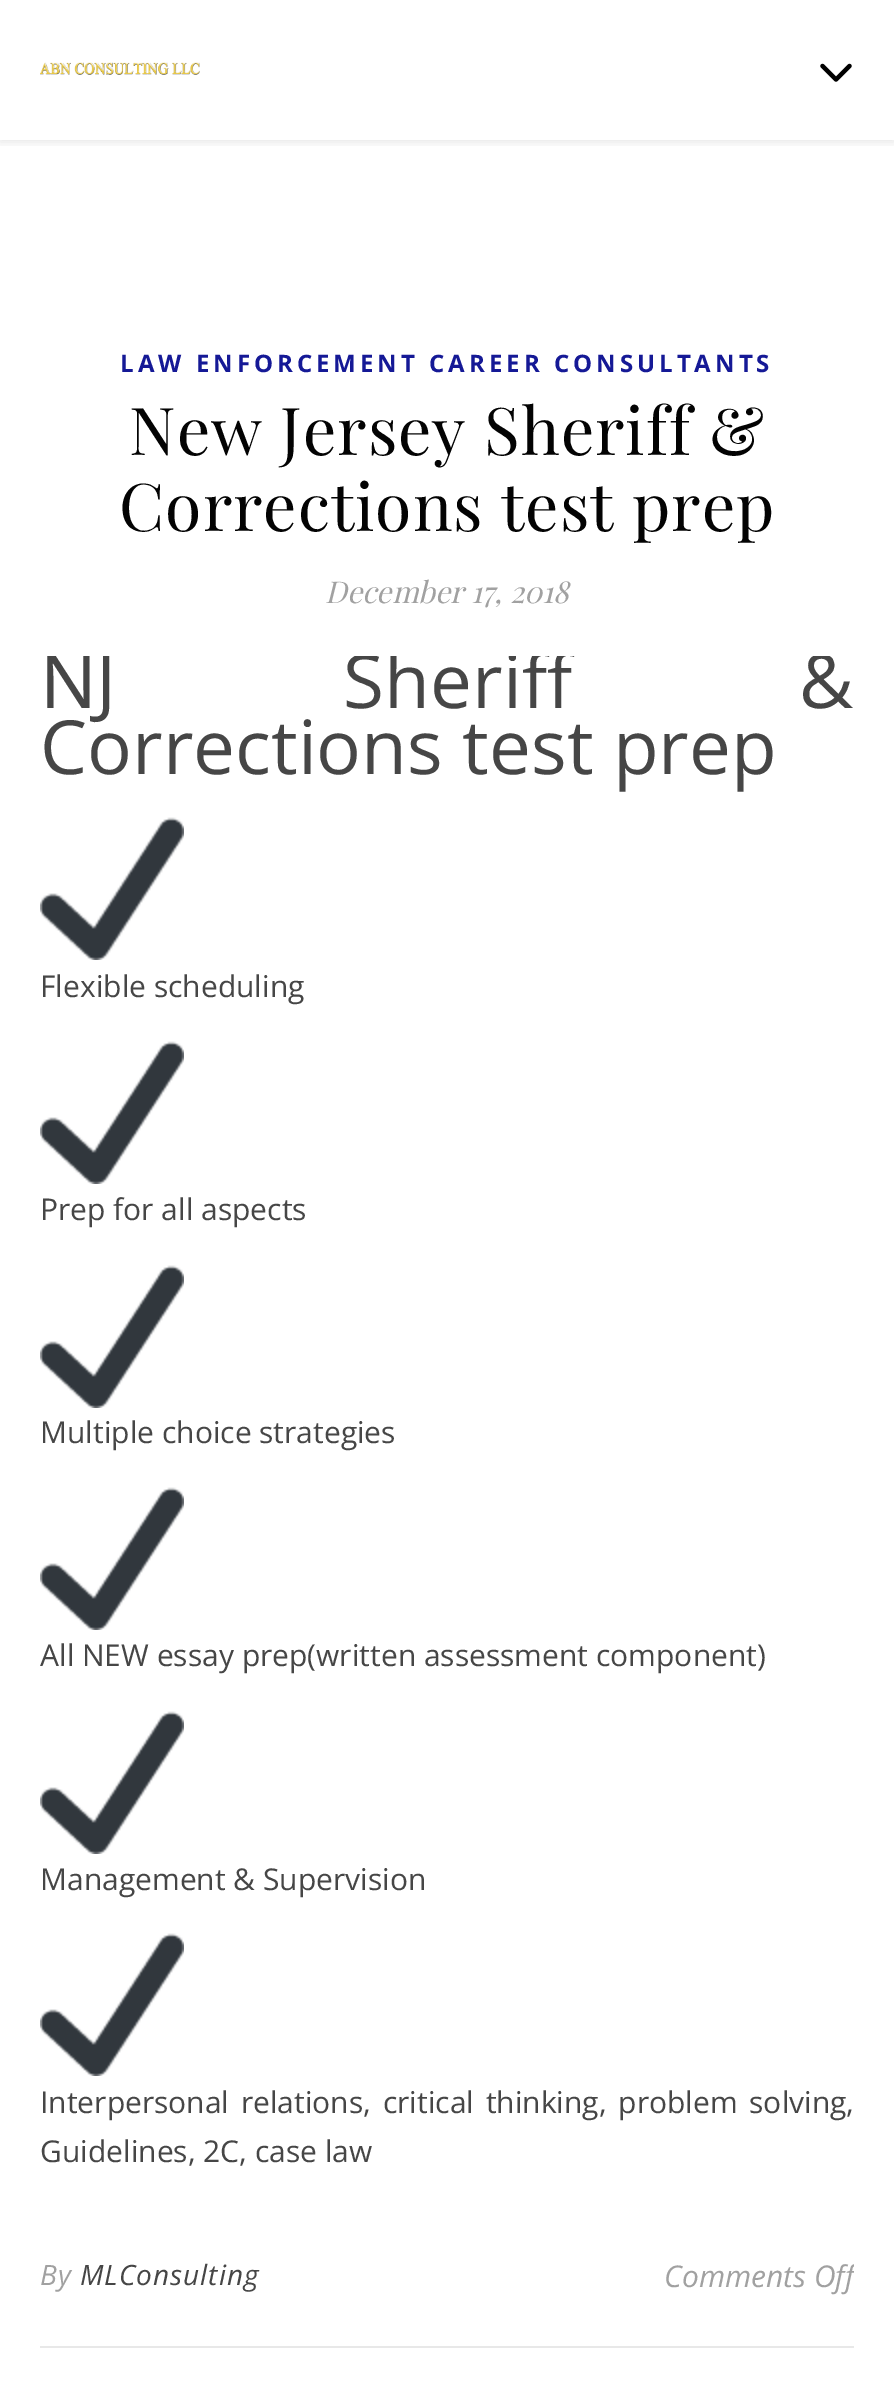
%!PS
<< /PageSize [894 2384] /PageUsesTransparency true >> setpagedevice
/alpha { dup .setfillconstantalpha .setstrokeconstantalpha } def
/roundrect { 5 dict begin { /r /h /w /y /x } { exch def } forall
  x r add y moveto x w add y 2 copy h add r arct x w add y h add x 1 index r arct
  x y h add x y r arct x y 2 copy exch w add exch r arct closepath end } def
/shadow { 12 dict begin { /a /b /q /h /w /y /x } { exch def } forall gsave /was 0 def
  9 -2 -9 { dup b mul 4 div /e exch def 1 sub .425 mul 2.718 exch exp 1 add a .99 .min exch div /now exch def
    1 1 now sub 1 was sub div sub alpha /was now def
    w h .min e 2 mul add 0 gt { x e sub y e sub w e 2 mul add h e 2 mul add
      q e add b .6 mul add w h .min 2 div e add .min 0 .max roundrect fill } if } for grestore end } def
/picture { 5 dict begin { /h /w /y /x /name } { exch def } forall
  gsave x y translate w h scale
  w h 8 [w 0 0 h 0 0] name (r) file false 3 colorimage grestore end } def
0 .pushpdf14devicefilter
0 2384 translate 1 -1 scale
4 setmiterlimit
1 setgray
0 0 894 2384 rectfill
gsave
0 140 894 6 rectclip
0 setgray
0 2 894 140 0 5 0.1 shadow
grestore
(img1.rgb) 40 62 160 13 picture
(img2.rgb) 820 63 32 19 picture
/OpenSans-Bold [24 0 0 -24 0 0] selectfont
0.082 0.098 0.588 setrgbcolor
120 372 moveto 4 0 (LAW ENFORCEMENT CAREER CONSULTANTS) ashow
/PlayfairDisplay-Regular [66 0 0 -66 0 0] selectfont
0.012 setgray
129 455 moveto 1 0 (New Jersey Sheriff &) ashow
119 531 moveto 1 0 (Corrections test prep) ashow
/PlayfairDisplay-Italic [30 0 0 -30 0 0] selectfont
0.631 setgray
325 603 moveto (December 17, 2018) show
gsave
40 656 814 1550 rectclip
/NotoSans-Regular [74.75 0 0 -74.75 0 0] selectfont
0.275 setgray
40 708 moveto (N) show
/OpenSans-Regular [74.75 0 0 -74.75 0 0] selectfont
96 708 moveto 208 0 32 (J Sheriff &) widthshow
grestore
/OpenSans-Regular [74.75 0 0 -74.75 0 0] selectfont
0.275 setgray
40 774 moveto (Corrections test prep) show
(img3.rgb) 40 817 144 143 picture
/OpenSans-Regular [30 0 0 -30 0 0] selectfont
40 997 moveto (Flexible scheduling) show
(img3.rgb) 40 1041 144 143 picture
40 1220 moveto (Prep for all aspects) show
(img3.rgb) 40 1265 144 143 picture
40 1443 moveto (Multiple choice strategies) show
(img3.rgb) 40 1487 144 143 picture
40 1666 moveto (All NEW essay prep\(written assessment component\)) show
(img3.rgb) 40 1711 144 143 picture
40 1890 moveto (Management & Supervision) show
(img3.rgb) 40 1933 144 143 picture
40 2113 moveto 4 0 32 (Interpersonal relations, critical thinking, problem solving,) widthshow
40 2162 moveto (Guidelines, 2C, case law) show
0.91 setgray
40 2346 814 2 rectfill
/OpenSans-Italic [28 0 0 -28 0 0] selectfont
0.631 setgray
40 2285 moveto 1 0 (By) ashow
0.275 setgray
80 2285 moveto 1 0 (MLConsulting) ashow
gsave
40 2206 814 140 rectclip
/OpenSans-Italic [30 0 0 -30 0 0] selectfont
0.631 setgray
664 2287 moveto (Comments Off) show
grestore
.poppdf14devicefilter showpage
